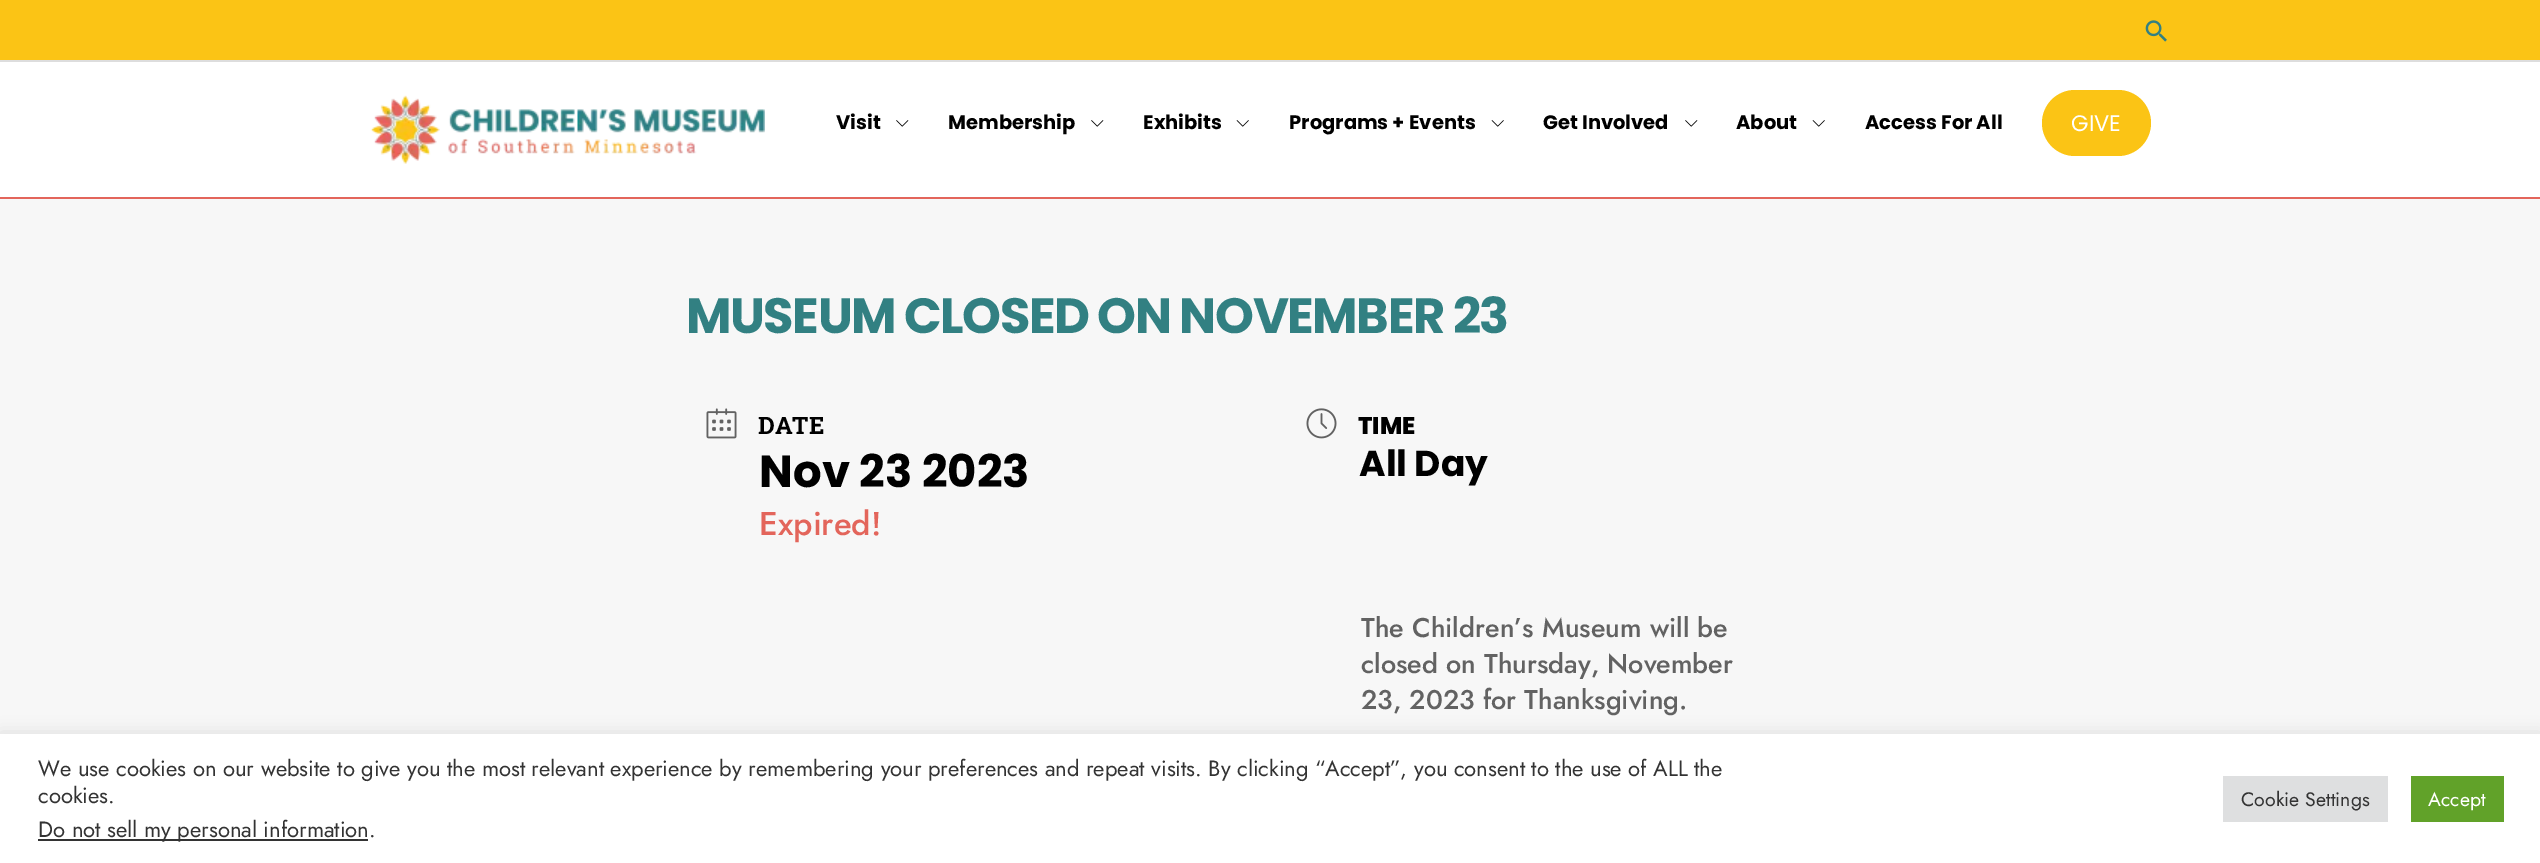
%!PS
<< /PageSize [2540 863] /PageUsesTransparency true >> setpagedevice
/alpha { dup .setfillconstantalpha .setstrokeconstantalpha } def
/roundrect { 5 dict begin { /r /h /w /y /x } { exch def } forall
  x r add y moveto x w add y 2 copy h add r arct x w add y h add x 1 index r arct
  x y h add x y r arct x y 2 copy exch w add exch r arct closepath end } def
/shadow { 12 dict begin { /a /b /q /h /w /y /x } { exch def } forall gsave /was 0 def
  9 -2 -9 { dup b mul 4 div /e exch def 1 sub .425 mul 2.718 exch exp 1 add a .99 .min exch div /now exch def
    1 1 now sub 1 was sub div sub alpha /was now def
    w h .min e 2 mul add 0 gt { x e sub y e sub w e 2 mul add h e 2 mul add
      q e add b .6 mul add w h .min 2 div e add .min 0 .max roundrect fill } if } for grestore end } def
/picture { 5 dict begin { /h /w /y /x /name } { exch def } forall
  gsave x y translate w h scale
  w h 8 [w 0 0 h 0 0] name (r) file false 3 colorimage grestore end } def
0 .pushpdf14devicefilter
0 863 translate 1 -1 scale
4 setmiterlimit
0.969 setgray
0 0 2540 863 rectfill
0.984 0.769 0.082 setrgbcolor
0 0 2540 60 rectfill
0.867 setgray
0 60 2540 2 rectfill
(img1.rgb) 2145 20 22 22 picture
1 setgray
0 62 2540 135 rectfill
0.89 0.396 0.357 setrgbcolor
0 197 2540 2 rectfill
(img2.rgb) 370 95 395 69 picture
/Poppins-Bold [19.5 0 0 -19.5 0 0] selectfont
0 setgray
836 129 moveto (Visit) show
(img3.rgb) 896 120 13 7 picture
948 129 moveto (Membership) show
(img3.rgb) 1091 120 13 7 picture
1143 129 moveto (Exhibits) show
(img4.rgb) 1236 120 13 7 picture
1289 129 moveto (Programs + Events) show
(img4.rgb) 1491 120 13 7 picture
1543 129 moveto (Get Involved) show
(img3.rgb) 1685 120 13 7 picture
1736 129 moveto (About) show
(img4.rgb) 1812 120 13 7 picture
1865 129 moveto (Access For All) show
0.984 0.769 0.082 setrgbcolor
2042 90 109 66 33 roundrect fill
/Poppins-Regular [22.5 0 0 -22.5 0 0] selectfont
1 setgray
2071 131 moveto (GIVE) show
/Poppins-Bold [49.5 0 0 -49.5 0 0] selectfont
0.196 0.502 0.51 setrgbcolor
686 333 moveto -1.5 0 (MUSEUM CLOSED ON NOVEMBER 23) ashow
(img5.rgb) 706 408 31 31 picture
/RobotoSlab-Bold [24 0 0 -24 0 0] selectfont
0 setgray
758 434 moveto (DATE) show
/Poppins-Bold [45 0 0 -45 0 0] selectfont
759 487 moveto (Nov 23 2023) show
/Jost-Medium [33 0 0 -33 0 0] selectfont
0.89 0.396 0.357 setrgbcolor
759 535 moveto (Expired!) show
(img6.rgb) 1306 408 31 31 picture
/Poppins-ExtraBold [24 0 0 -24 0 0] selectfont
0 setgray
1358 434 moveto (TIME) show
/Poppins-Bold [36 0 0 -36 0 0] selectfont
1359 476 moveto (All Day) show
/Jost-Medium [27 0 0 -27 0 0] selectfont
0.384 setgray
1361 637 moveto (The Children’s Museum will be) show
1361 673 moveto (closed on Thursday, November) show
1361 709 moveto (23, 2023 for Thanksgiving.) show
0.675 0.671 0.671 setrgbcolor
0 732 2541 131 0 7.5 0.3 shadow
1 setgray
0 734 2540 129 rectfill
/Jost-Regular [22 0 0 -22 0 0] selectfont
0.2 setgray
38 776 moveto (We use cookies on our website to give you the most relevant experience by remembering your preferences and repeat visits. By clicking “Accept”, you consent to the use of ALL the) show
38 803 moveto (cookies.) show
38 839 330 2 rectfill
38 837 moveto (Do not sell my personal information.) show
0.871 0.875 0.878 setrgbcolor
2223 776 165 46 rectfill
/Jost-Regular [19.5 0 0 -19.5 0 0] selectfont
0.2 setgray
2241 806 moveto (Cookie Settings) show
0.38 0.635 0.161 setrgbcolor
2411 776 93 46 rectfill
1 setgray
2428 806 moveto (Accept) show
.poppdf14devicefilter showpage
